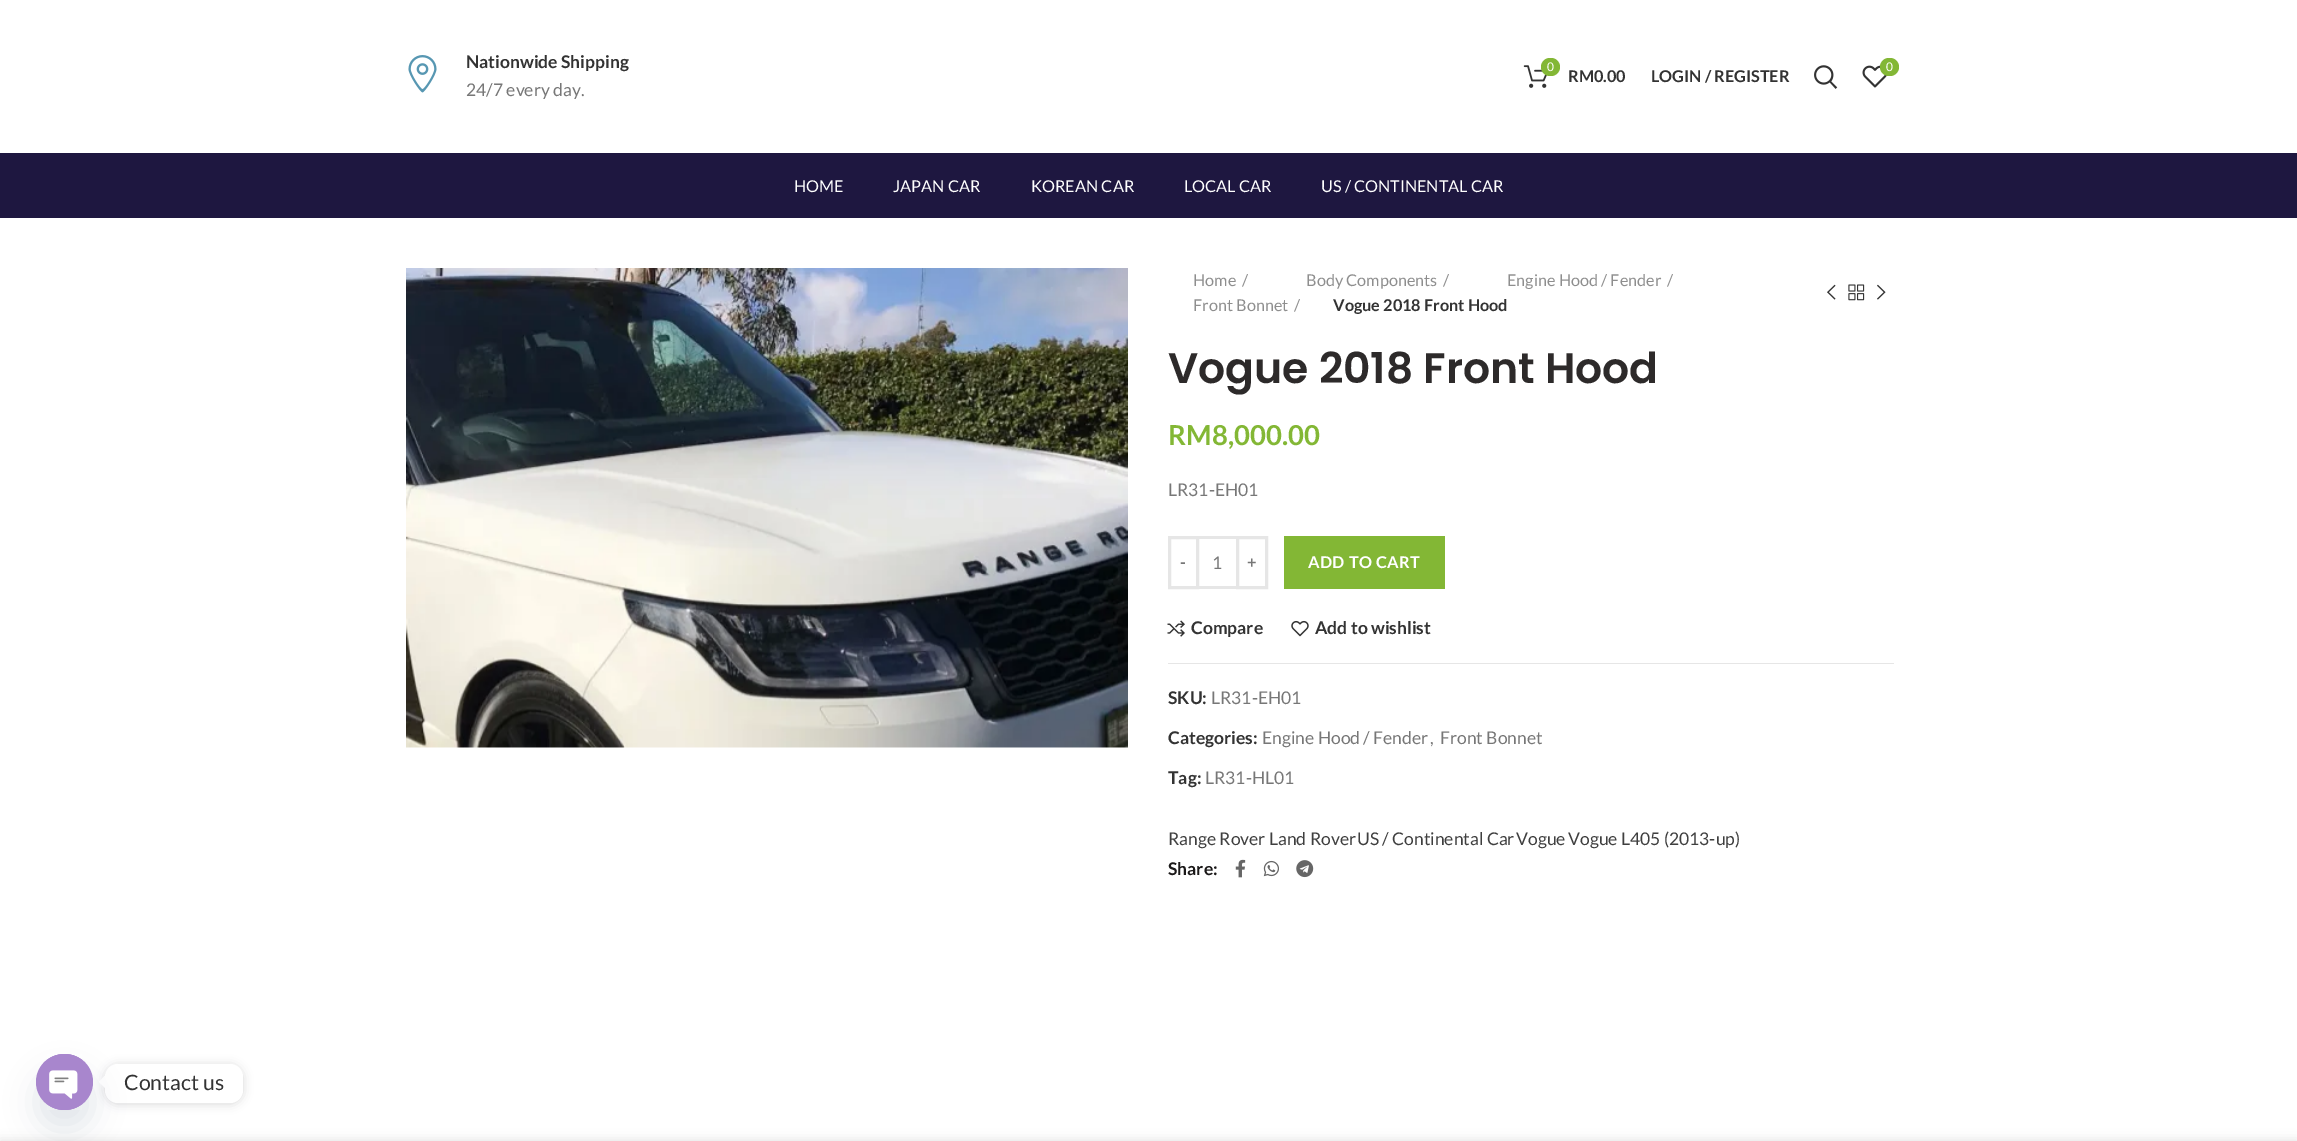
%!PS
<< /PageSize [2297 1141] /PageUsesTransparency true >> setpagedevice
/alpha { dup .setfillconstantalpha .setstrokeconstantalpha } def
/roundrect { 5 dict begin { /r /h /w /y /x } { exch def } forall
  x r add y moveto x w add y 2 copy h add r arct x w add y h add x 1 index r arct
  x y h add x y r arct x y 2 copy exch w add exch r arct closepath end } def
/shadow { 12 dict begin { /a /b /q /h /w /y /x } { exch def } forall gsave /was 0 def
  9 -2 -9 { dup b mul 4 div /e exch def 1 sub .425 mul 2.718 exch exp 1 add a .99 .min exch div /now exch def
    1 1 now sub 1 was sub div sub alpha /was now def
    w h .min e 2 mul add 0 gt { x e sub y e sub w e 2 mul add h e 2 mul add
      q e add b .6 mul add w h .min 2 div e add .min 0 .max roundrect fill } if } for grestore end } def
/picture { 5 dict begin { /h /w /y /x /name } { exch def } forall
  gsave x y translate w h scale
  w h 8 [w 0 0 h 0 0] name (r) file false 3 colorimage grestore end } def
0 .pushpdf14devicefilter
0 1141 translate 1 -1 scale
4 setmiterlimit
1 setgray
0 0 2297 1141 rectfill
(img1.rgb) 408 55 29 38 picture
/Lato-Bold [17.5 0 0 -17.5 0 0] selectfont
0.2 setgray
466 68 moveto (Nationwide Shipping) show
/Lato-Regular [17.5 0 0 -17.5 0 0] selectfont
0.467 setgray
466 96 moveto (24/7 every day.) show
(img2.rgb) 1523 65 24 23 picture
0.514 0.718 0.208 setrgbcolor
1541 58 19 18 9 roundrect fill
/Lato-Regular [12 0 0 -12 0 0] selectfont
1 setgray
1547 71 moveto (0) show
/Lato-Bold [16.25 0 0 -16.25 0 0] selectfont
0.2 setgray
1568 82 moveto (RM0.00) show
1651 82 moveto (LOGIN / REGISTER) show
(img3.rgb) 1814 65 24 24 picture
(img4.rgb) 1862 65 25 23 picture
0.514 0.718 0.208 setrgbcolor
1880 58 19 18 9 roundrect fill
/Lato-Regular [12 0 0 -12 0 0] selectfont
1 setgray
1886 71 moveto (0) show
0.118 0.09 0.251 setrgbcolor
0 153 2297 65 rectfill
/Lato-Regular [16.25 0 0 -16.25 0 0] selectfont
1 setgray
794 192 moveto (HOME) show
893 192 moveto (JAPAN CAR) show
1031 192 moveto (KOREAN CAR) show
1184 192 moveto (LOCAL CAR) show
1321 192 moveto (US / CONTINENTAL CAR) show
(img5.rgb) 406 268 722 480 picture
0.557 setgray
1193 286 moveto (Home) show
1242 286 moveto (/) show
1306 286 moveto (Body Components) show
1443 286 moveto (/) show
1507 286 moveto (Engine Hood / Fender) show
1667 286 moveto (/) show
1193 311 moveto (Front Bonnet) show
1294 311 moveto (/) show
/Lato-Bold [16.25 0 0 -16.25 0 0] selectfont
0.2 setgray
1333 311 moveto (Vogue 2018 Front Hood) show
(img6.rgb) 1827 284 9 16 picture
(img7.rgb) 1848 284 17 17 picture
(img8.rgb) 1877 284 9 16 picture
/Poppins-SemiBold [42.5 0 0 -42.5 0 0] selectfont
0.176 0.165 0.165 setrgbcolor
1168 383 moveto (Vogue 2018 Front Hood) show
/Lato-Bold [27.5 0 0 -27.5 0 0] selectfont
0.514 0.718 0.208 setrgbcolor
1168 445 moveto (RM8,000.00) show
/Lato-Regular [17.5 0 0 -17.5 0 0] selectfont
0.467 setgray
1168 496 moveto (LR31-EH01) show
0.902 setgray
3 setlinewidth
1169.5 537.5 28 50 rectstroke
/Lato-Bold [16.25 0 0 -16.25 0 0] selectfont
0.467 setgray
1180 568 moveto 0.4 0 (-) ashow
0.902 setgray
1199 536 37 3 rectfill
1199 586 37 3 rectfill
/Lato-Regular [17.5 0 0 -17.5 0 0] selectfont
0.467 setgray
1212 569 moveto (1) show
0.902 setgray
1237.5 537.5 29 50 rectstroke
/Lato-Bold [16.25 0 0 -16.25 0 0] selectfont
0.467 setgray
1247 568 moveto 0.4 0 (+) ashow
0.514 0.718 0.208 setrgbcolor
1284 536 161 53 rectfill
1 setgray
1308 568 moveto 0.4 0 (ADD TO CART) ashow
(img9.rgb) 1167 620 18 17 picture
/Lato-Bold [17.5 0 0 -17.5 0 0] selectfont
0.2 setgray
1191 634 moveto (Compare) show
(img10.rgb) 1291 620 18 17 picture
1315 634 moveto (Add to wishlist) show
0.902 setgray
1168 663 726 1 rectfill
0.2 setgray
1168 704 moveto (SKU:) show
/Lato-Regular [17.5 0 0 -17.5 0 0] selectfont
0.467 setgray
1211 704 moveto (LR31-EH01) show
/Lato-Bold [17.5 0 0 -17.5 0 0] selectfont
0.2 setgray
1168 744 moveto (Categories:) show
/Lato-Regular [17.5 0 0 -17.5 0 0] selectfont
0.467 setgray
1262 744 moveto (Engine Hood / Fender) show
1430 744 moveto (,) show
1440 744 moveto (Front Bonnet) show
/Lato-Bold [17.5 0 0 -17.5 0 0] selectfont
0.2 setgray
1168 784 moveto (Tag:) show
/Lato-Regular [17.5 0 0 -17.5 0 0] selectfont
0.467 setgray
1205 784 moveto (LR31-HL01) show
0.247 setgray
1168 845 moveto (Range Rover Land Rover) show
1357 845 moveto (US / Continental Car) show
1516 845 moveto (Vogue) show
1568 845 moveto (Vogue L405 \(2013-up\)) show
/Lato-Bold [17.5 0 0 -17.5 0 0] selectfont
0.106 0.098 0.098 setrgbcolor
1168 875 moveto (Share:) show
(img11.rgb) 1235 859 11 19 picture
(img12.rgb) 1263 860 16 17 picture
(img13.rgb) 1296 860 18 18 picture
0 setgray
105 1065 138 39 13 5 0.15 shadow
1 setgray
105 1064 138 39 13 roundrect fill
newpath 105 1075.5 moveto 105 1088 lineto 99 1082 lineto closepath fill
0.286 0.408 0.494 setrgbcolor
36 1074 57 56 28 15 0.16 shadow
0.659 0.525 0.804 setrgbcolor
36 1054 57 56 28 roundrect fill
(img14.rgb) 47 1054 35 56 picture
/Lato-Regular [21.25 0 0 -21.25 0 0] selectfont
0.2 setgray
124 1090 moveto (Contact us) show
0 setgray
0 1141 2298 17 0 5.5 0.12 shadow
.poppdf14devicefilter showpage
